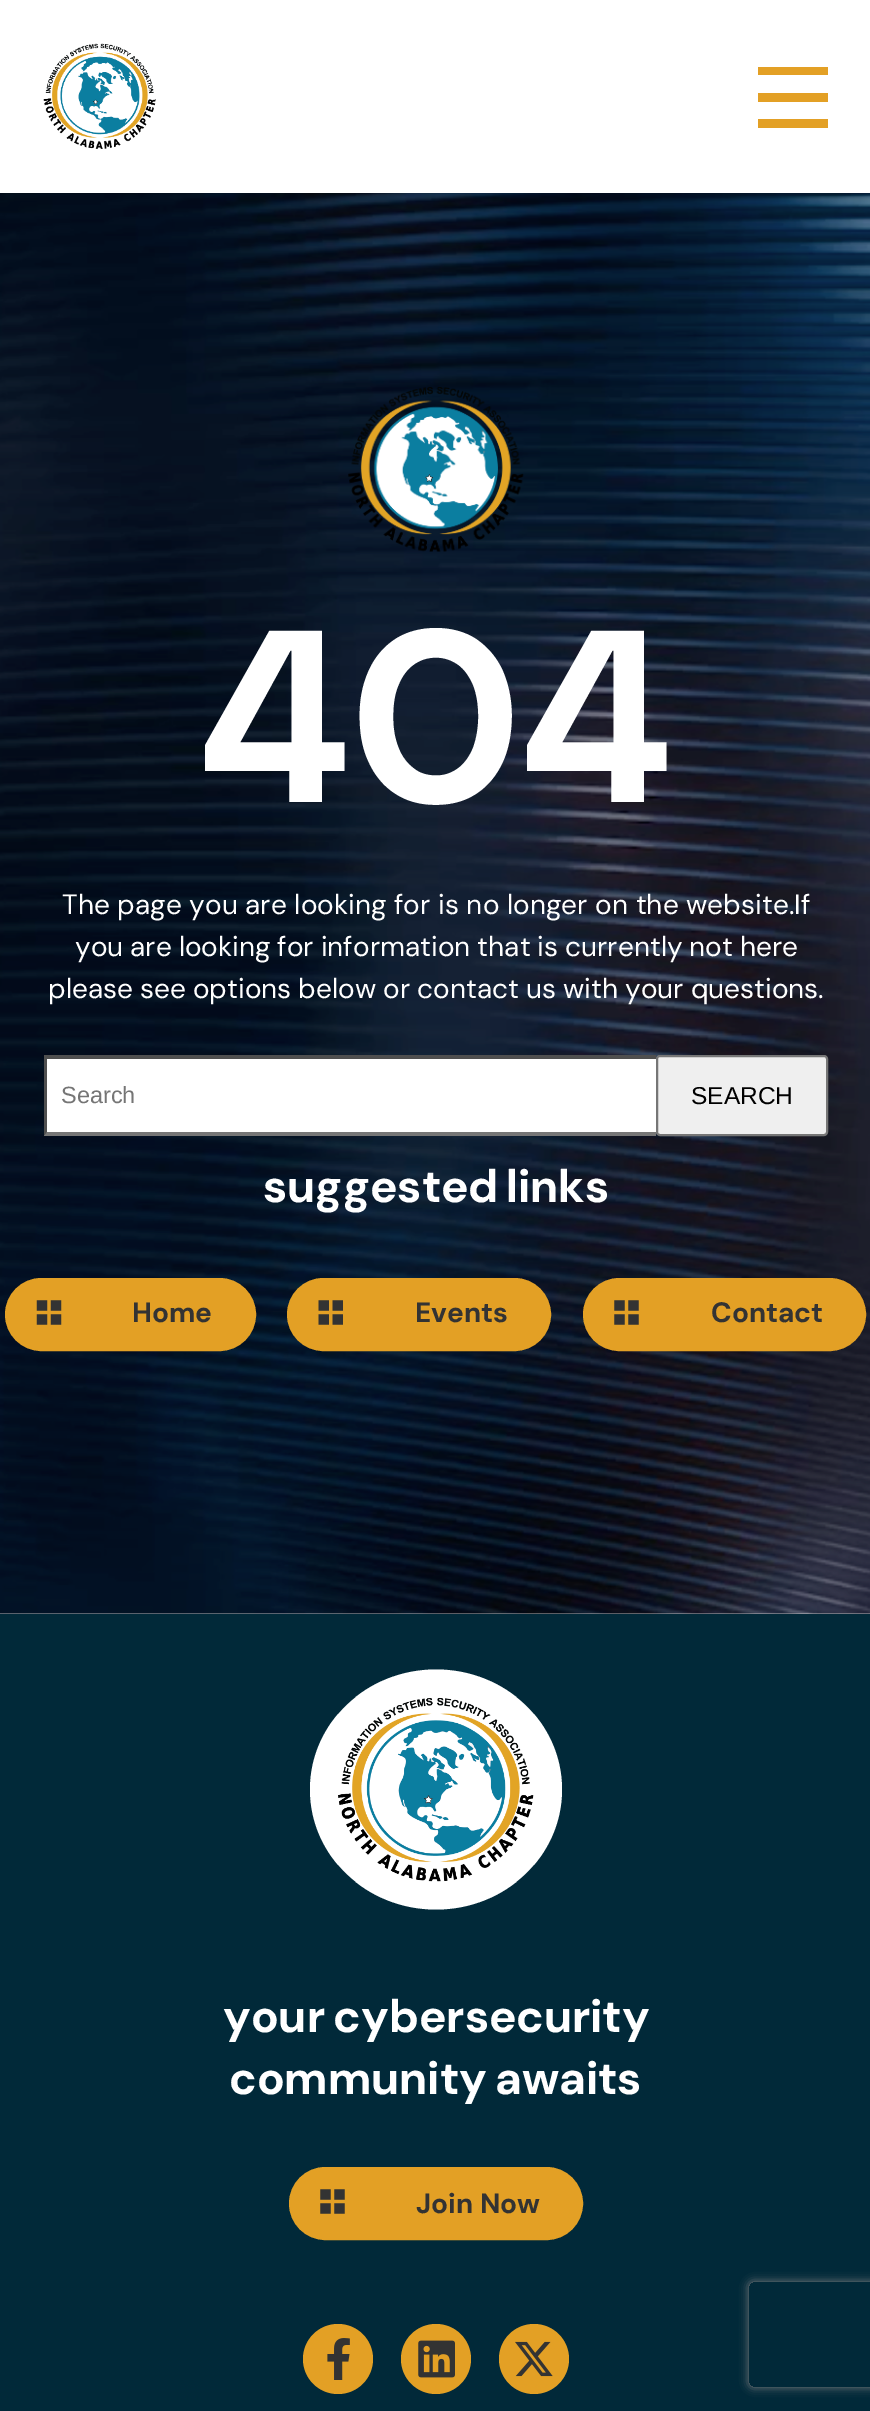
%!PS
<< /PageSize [870 2411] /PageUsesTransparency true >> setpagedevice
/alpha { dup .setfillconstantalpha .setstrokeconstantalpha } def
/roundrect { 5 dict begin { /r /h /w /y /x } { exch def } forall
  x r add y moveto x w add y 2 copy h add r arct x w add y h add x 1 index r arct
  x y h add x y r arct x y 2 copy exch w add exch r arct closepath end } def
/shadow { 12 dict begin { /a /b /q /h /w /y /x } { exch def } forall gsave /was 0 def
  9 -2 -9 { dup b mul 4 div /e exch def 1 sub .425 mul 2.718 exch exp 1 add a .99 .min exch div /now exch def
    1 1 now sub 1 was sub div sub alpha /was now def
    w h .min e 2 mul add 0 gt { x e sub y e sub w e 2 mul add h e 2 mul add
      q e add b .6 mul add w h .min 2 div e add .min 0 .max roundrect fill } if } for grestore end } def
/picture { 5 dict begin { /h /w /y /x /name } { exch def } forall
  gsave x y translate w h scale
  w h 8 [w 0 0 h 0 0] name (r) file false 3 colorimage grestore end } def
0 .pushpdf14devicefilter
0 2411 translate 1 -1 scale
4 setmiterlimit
0.8 setgray
0 0 870 2411 rectfill
(img2.rgb) 0 193 870 1421 picture
0 setgray
0 0 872 193 0 3.5 0.15 shadow
1 setgray
0 0 870 193 rectfill
(img1.rgb) 43 43 113 106 picture
0.89 0.627 0.145 setrgbcolor
758 67 70 8 rectfill
758 93 70 9 rectfill
758 119 70 9 rectfill
(img3.rgb) 348 387 176 165 picture
/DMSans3-Bold [245 0 0 -245 0 0] selectfont
1 setgray
199 802 moveto (404) show
/DMSans-Regular [28 0 0 -28 0 0] selectfont
62 914 moveto 0.25 0 32 (The page you are looking for is no longer on the website.) widthshow
794 914 moveto (If) show
75 956 moveto -0.5 0 32 (you are looking for information that is currently not here) widthshow
48 998 moveto -0.4 0 32 (please see options below or contact us with your questions.) widthshow
44 1059 612 77 rectfill
0.31 setgray
44 1055 612 4 rectfill
0.463 setgray
newpath 656 1136 moveto 44 1136 lineto 47 1132 lineto 656 1132 lineto closepath fill
0.31 setgray
newpath 44 1136 moveto 44 1055 lineto 47 1059 lineto 47 1132 lineto closepath fill
/LiberationSans-Regular [23.5 0 0 -23.5 0 0] selectfont
0.459 setgray
61 1103 moveto (Search) show
0.937 setgray
657 1056 170 79 3 roundrect gsave fill grestore
0.463 setgray
2 setlinewidth
stroke
/LiberationSans-Regular [24.5 0 0 -24.5 0 0] selectfont
0 setgray
691 1104 moveto (SEARCH) show
/DMSans-Bold [46.25 0 0 -46.25 0 0] selectfont
1 setgray
263 1202 moveto -3 0 32 (suggested links) widthshow
0.89 0.627 0.145 setrgbcolor
6 1279 249 71 35.5 roundrect gsave fill grestore
stroke
(img4.rgb) 36 1300 26 25 picture
/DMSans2-Bold [28 0 0 -28 0 0] selectfont
0.2 setgray
132 1322 moveto (Home) show
0.89 0.627 0.145 setrgbcolor
288 1279 262 71 35.5 roundrect gsave fill grestore
stroke
(img5.rgb) 318 1300 25 25 picture
0.2 setgray
415 1322 moveto (Events) show
0.89 0.627 0.145 setrgbcolor
584 1279 281 71 35.5 roundrect gsave fill grestore
stroke
(img6.rgb) 614 1300 25 25 picture
0.2 setgray
711 1322 moveto (Contact) show
0.004 0.161 0.224 setrgbcolor
0 1614 870 797 rectfill
1 setgray
newpath 436 1669.5 moveto 505.5 1669.5 562 1723 562 1789.5 curveto 562 1856 505.5 1909.5 436 1909.5 curveto 366.5 1909.5 310 1856 310 1789.5 curveto 310 1723 366.5 1669.5 436 1669.5 curveto closepath fill
(img7.rgb) 338 1697 196 185 picture
/DMSans-Bold [46.25 0 0 -46.25 0 0] selectfont
223 2032 moveto -2 0 32 (your cybersecurity) widthshow
229 2094 moveto -2 0 32 (community awaits) widthshow
0.89 0.627 0.145 setrgbcolor
290 2168 292 71 35.5 roundrect gsave fill grestore
stroke
(img6.rgb) 320 2189 25 25 picture
/DMSans2-Bold [28 0 0 -28 0 0] selectfont
0.2 setgray
416 2213 moveto (Join Now) show
0.89 0.627 0.145 setrgbcolor
newpath 338 2359 35 0 360 arc closepath fill
(img8.rgb) 327 2338 23 42 picture
newpath 436 2359 35 0 360 arc closepath fill
(img9.rgb) 418 2340 37 38 picture
newpath 534 2359 35 0 360 arc closepath fill
(img10.rgb) 515 2341 38 36 picture
gsave
newpath 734 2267 moveto 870 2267 lineto 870 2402 lineto 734 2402 lineto closepath 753 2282 moveto 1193 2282 lineto 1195 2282 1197 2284 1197 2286 curveto 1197 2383 lineto 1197 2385 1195 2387 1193 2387 curveto 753 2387 lineto 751 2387 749 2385 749 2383 curveto 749 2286 lineto 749 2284 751 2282 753 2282 curveto closepath eoclip newpath
0.502 setgray
749 2282 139 105 4 4.5 1 shadow
grestore
.poppdf14devicefilter showpage
